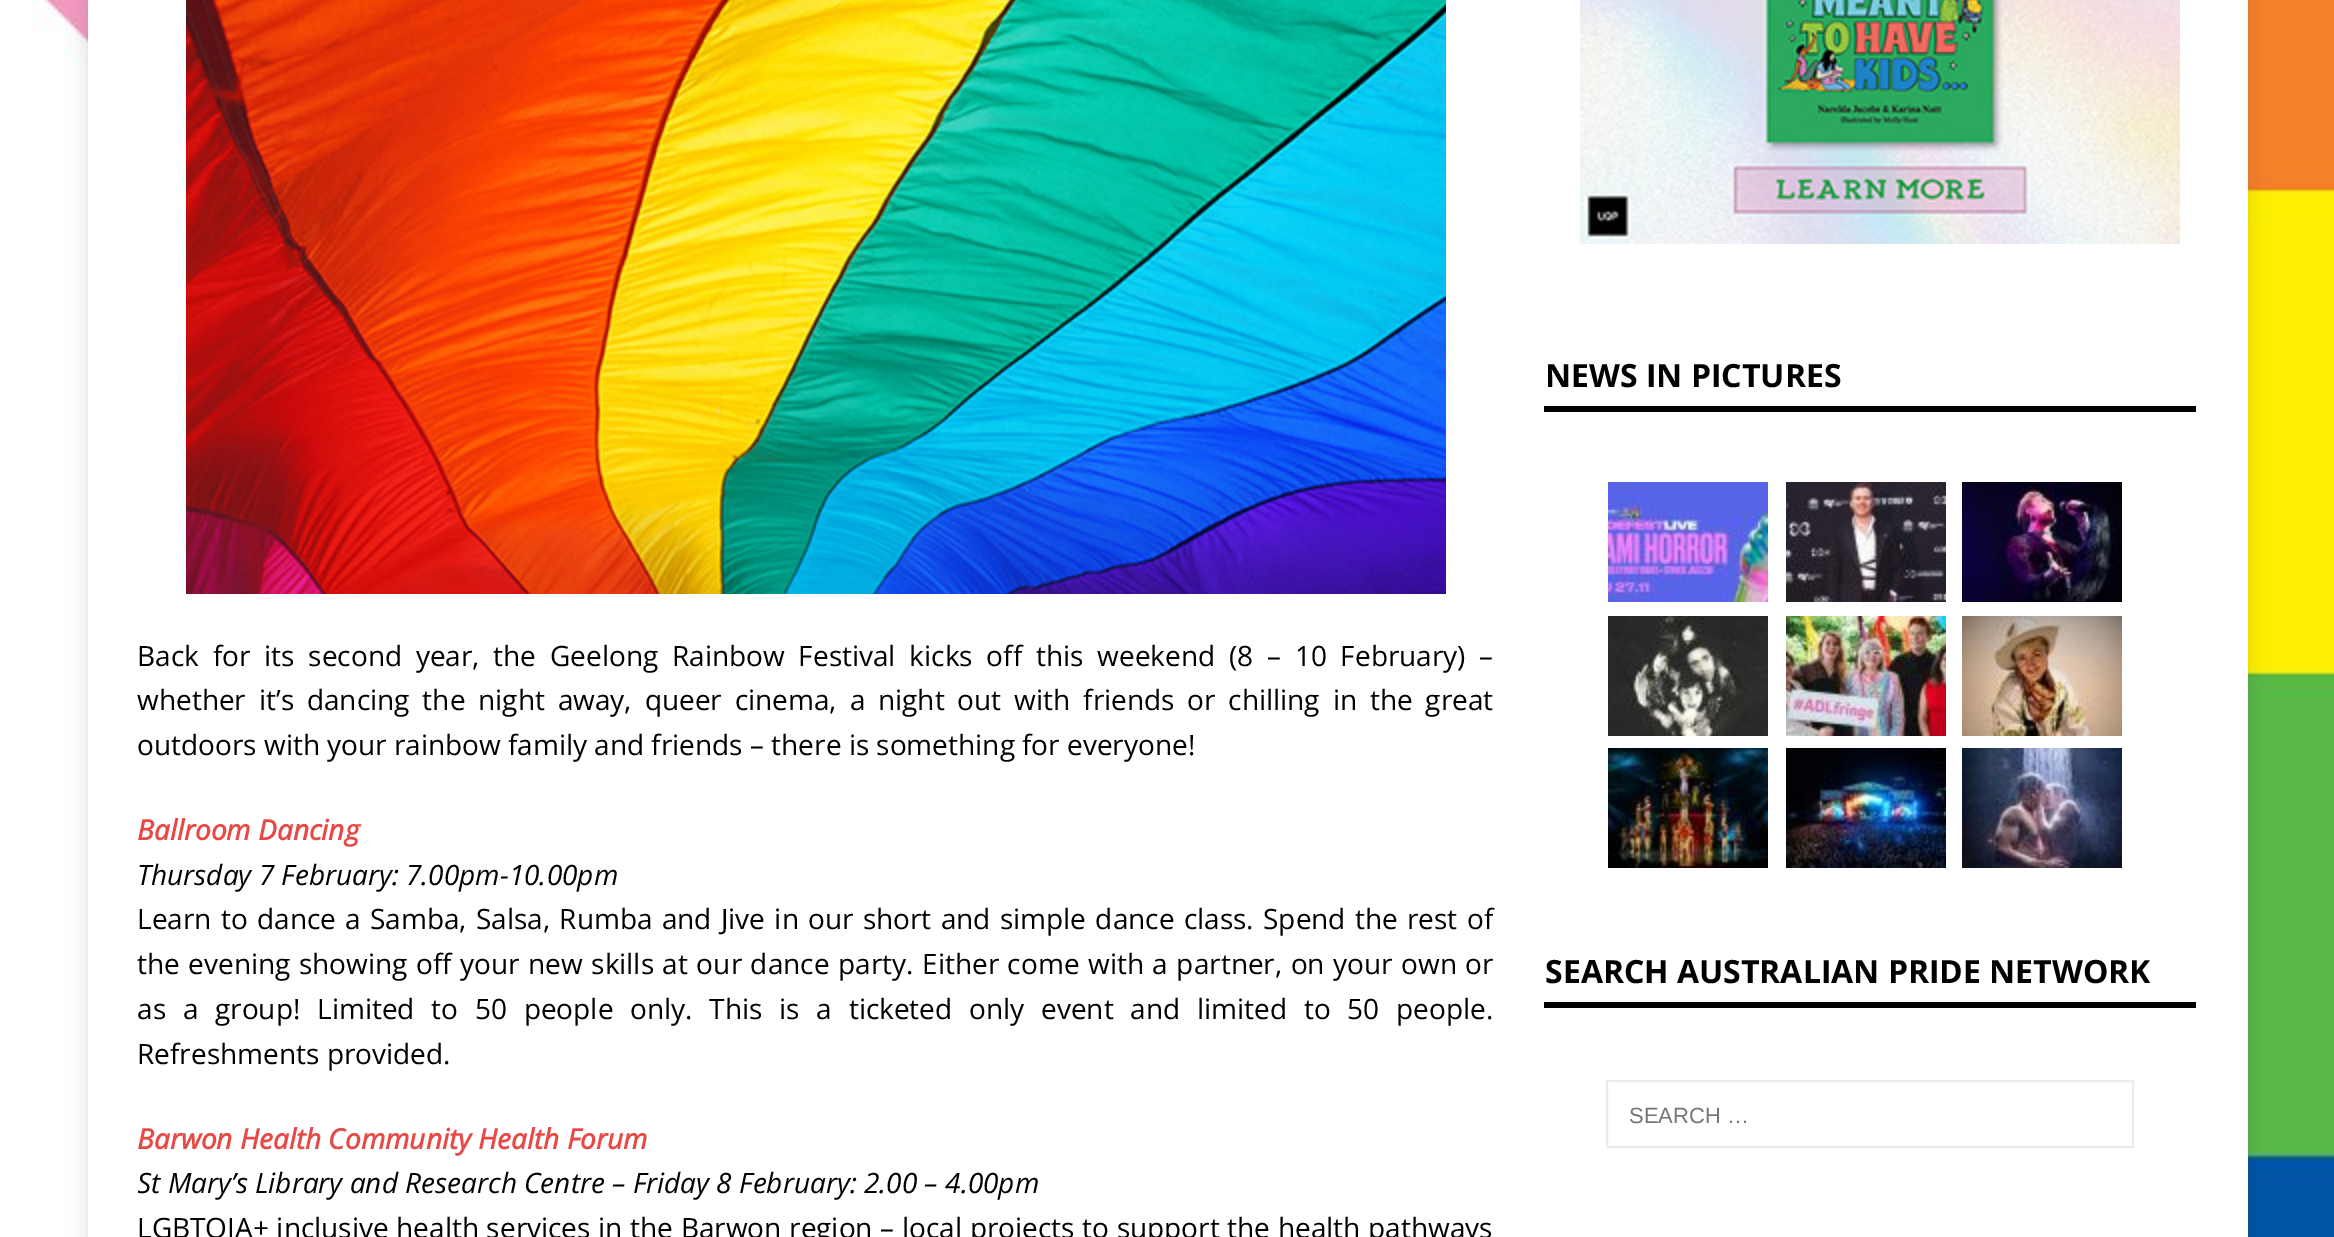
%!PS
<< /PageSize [2334 1237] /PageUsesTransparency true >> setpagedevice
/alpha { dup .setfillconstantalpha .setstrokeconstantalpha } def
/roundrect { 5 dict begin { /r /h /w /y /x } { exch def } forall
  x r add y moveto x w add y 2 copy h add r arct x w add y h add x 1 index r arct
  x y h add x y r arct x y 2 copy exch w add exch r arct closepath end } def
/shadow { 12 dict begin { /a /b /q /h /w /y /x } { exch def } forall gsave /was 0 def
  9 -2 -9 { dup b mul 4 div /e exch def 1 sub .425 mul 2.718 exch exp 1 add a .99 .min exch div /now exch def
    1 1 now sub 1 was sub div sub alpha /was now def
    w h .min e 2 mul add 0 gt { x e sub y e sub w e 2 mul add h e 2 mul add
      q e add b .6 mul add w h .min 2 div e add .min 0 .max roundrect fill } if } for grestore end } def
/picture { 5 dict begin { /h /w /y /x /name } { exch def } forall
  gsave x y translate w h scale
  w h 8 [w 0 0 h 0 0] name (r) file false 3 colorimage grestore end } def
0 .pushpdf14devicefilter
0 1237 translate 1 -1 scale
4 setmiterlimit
1 setgray
0 0 2334 1237 rectfill
(img1.rgb) 0 0 2334 1237 picture
0.196 setgray
88 -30 2160 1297 0 10 0.17 shadow
1 setgray
88 0 2160 1237 rectfill
(img2.rgb) 186 0 1260 594 picture
/OpenSans-Regular [28 0 0 -28 0 0] selectfont
0 setgray
137 666 moveto 6.5 0 32 (Back for its second year, the Geelong Rainbow Festival kicks off this weekend \(8 – 10 February\) –) widthshow
137 710 moveto 5.6 0 32 (whether it’s dancing the night away, queer cinema, a night out with friends or chilling in the great) widthshow
137 755 moveto (outdoors with your rainbow family and friends – there is something for everyone!) show
/OpenSans-BoldItalic [28 0 0 -28 0 0] selectfont
0.902 0.286 0.275 setrgbcolor
137 840 moveto (Ballroom Dancing) show
/OpenSans-Italic [28 0 0 -28 0 0] selectfont
0 setgray
137 885 moveto (Thursday 7 February: 7.00pm-10.00pm) show
/OpenSans-Regular [28 0 0 -28 0 0] selectfont
137 929 moveto 2 0 32 (Learn to dance a Samba, Salsa, Rumba and Jive in our short and simple dance class. Spend the rest of) widthshow
137 974 moveto 1.25 0 32 (the evening showing off your new skills at our dance party. Either come with a partner, on your own or) widthshow
137 1019 moveto 9.5 0 32 (as a group! Limited to 50 people only. This is a ticketed only event and limited to 50 people.) widthshow
137 1064 moveto (Refreshments provided.) show
/OpenSans-BoldItalic [28 0 0 -28 0 0] selectfont
0.902 0.286 0.275 setrgbcolor
137 1149 moveto (Barwon Health Community Health Forum) show
gsave
138 0 1356 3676 rectclip
/OpenSans-Italic [28 0 0 -28 0 0] selectfont
0 setgray
137 1193 moveto (St Mary’s Library and Research Centre – Friday 8 February: 2.00 – 4.00pm) show
grestore
/OpenSans-Regular [28 0 0 -28 0 0] selectfont
0 setgray
137 1238 moveto 0.4 0 32 (LGBTQIA+ inclusive health services in the Barwon region – local projects to support the health pathways) widthshow
(img3.rgb) 1580 0 600 244 picture
1544 406 652 6 rectfill
/OpenSans-Bold [32 0 0 -32 0 0] selectfont
1545 387 moveto (NEWS IN PICTURES) show
(img4.rgb) 1608 482 160 120 picture
(img5.rgb) 1786 482 160 120 picture
(img6.rgb) 1962 482 160 120 picture
(img7.rgb) 1608 616 160 120 picture
(img8.rgb) 1786 616 160 120 picture
(img9.rgb) 1962 616 160 120 picture
(img10.rgb) 1608 748 160 120 picture
(img11.rgb) 1786 748 160 120 picture
(img12.rgb) 1962 748 160 120 picture
1544 1002 652 6 rectfill
1545 983 moveto (SEARCH AUSTRALIAN PRIDE NETWORK) show
0.922 setgray
2 setlinewidth
1607 1081 526 66 rectstroke
/LiberationSans-Regular [22 0 0 -22 0 0] selectfont
0.459 setgray
1629 1123 moveto (SEARCH …) show
.poppdf14devicefilter showpage
